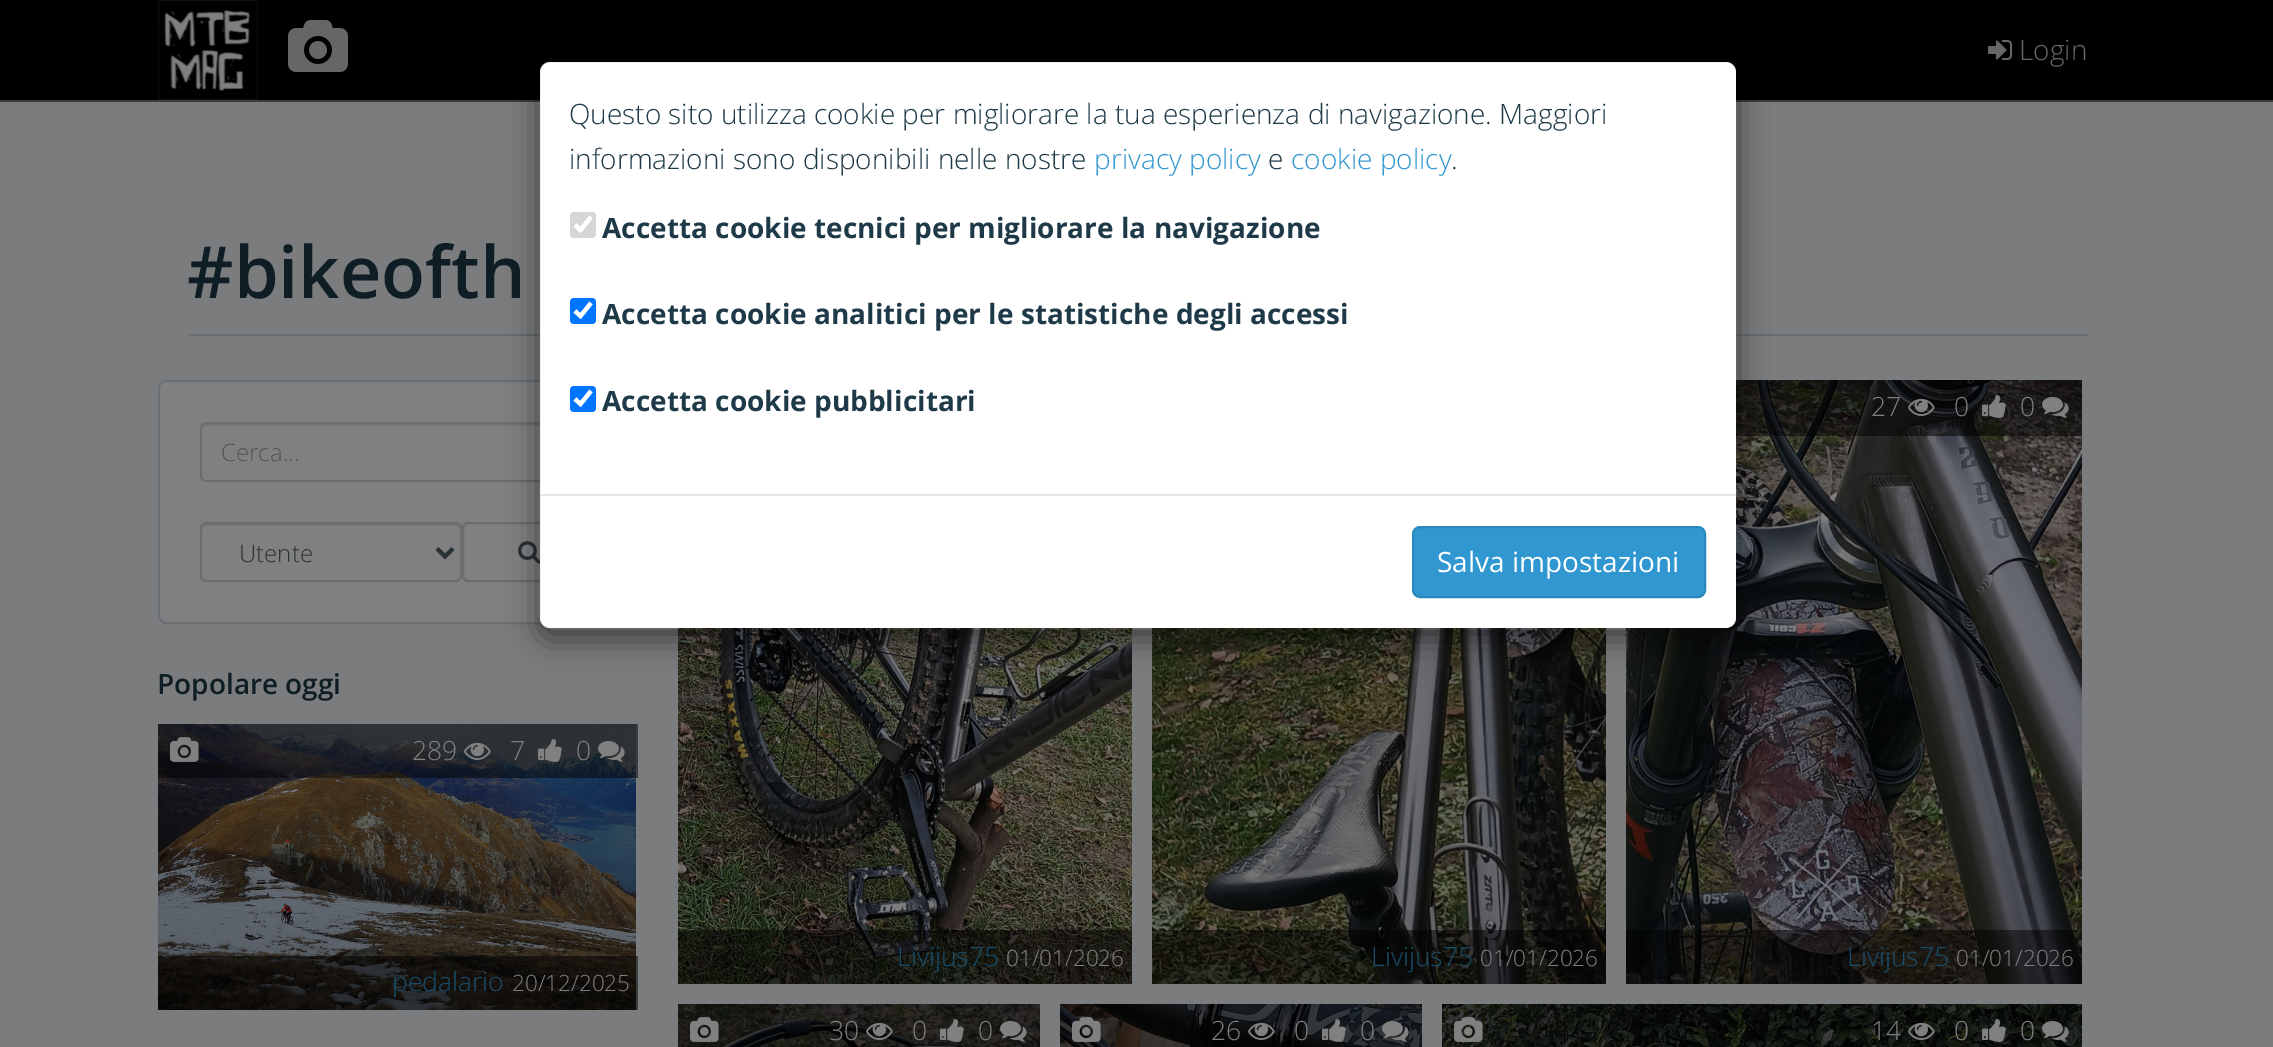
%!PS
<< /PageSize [2273 1047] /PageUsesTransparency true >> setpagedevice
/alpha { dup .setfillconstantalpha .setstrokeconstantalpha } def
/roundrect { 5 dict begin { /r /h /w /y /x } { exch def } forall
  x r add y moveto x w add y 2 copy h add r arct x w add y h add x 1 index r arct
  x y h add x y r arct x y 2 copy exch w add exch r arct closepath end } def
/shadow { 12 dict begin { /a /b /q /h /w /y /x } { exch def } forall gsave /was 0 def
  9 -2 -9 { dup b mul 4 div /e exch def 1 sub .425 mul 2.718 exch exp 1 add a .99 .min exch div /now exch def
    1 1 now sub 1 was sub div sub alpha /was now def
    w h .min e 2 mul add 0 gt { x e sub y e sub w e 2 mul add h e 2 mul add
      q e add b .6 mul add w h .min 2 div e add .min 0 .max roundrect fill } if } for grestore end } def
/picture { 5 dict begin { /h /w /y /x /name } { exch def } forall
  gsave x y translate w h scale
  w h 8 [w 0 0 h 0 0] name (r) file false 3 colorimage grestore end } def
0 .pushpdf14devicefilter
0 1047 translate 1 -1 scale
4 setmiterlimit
0.482 0.486 0.49 setrgbcolor
0 0 2273 1047 rectfill
0 setgray
0 0 2273 100 rectfill
0.235 setgray
0 100 2273 2 rectfill
(img1.rgb) 157 0 101 100 picture
(img2.rgb) 288 20 60 52 picture
(img3.rgb) 1988 40 24 20 picture
/OpenSans-Light [28 0 0 -28 0 0] selectfont
0.4 setgray
2019 60 moveto (Login) show
0.416 0.431 0.439 setrgbcolor
188 334 1900 2 rectfill
0.502 setgray
159 381 478 242 7 roundrect gsave fill grestore
0.416 0.439 0.459 setrgbcolor
2 setlinewidth
stroke
0.463 setgray
newpath 206 426 moveto 590 426 lineto 592 426 594 428 594 430 curveto 594 428 lineto 594 426 592 424 590 424 curveto 206 424 lineto 204 424 202 426 202 428 curveto 202 430 lineto 202 428 204 426 206 426 curveto closepath fill
0.416 0.431 0.439 setrgbcolor
201 423 394 58 5 roundrect stroke
463 523 130 58 5 roundrect stroke
(img4.rgb) 518 541 22 23 picture
(img10.rgb) 678 628 454 356 picture
(img11.rgb) 1152 628 454 356 picture
(img12.rgb) 1626 380 456 604 picture
0.5 alpha
0 setgray
1736 380 346 56 rectfill
gsave
newpath 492 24 moveto 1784 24 lineto 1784 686 lineto 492 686 lineto closepath 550 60 moveto 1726 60 lineto 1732.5 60 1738 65.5 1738 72 curveto 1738 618 lineto 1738 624.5 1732.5 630 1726 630 curveto 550 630 lineto 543.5 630 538 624.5 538 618 curveto 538 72 lineto 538 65.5 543.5 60 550 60 curveto closepath eoclip newpath
1 alpha
538 70 1200 570 12 15 0.5 shadow
grestore
1 alpha
1 setgray
540 62 1196 566 10 roundrect fill
0.2 alpha
0 setgray
539 61 1198 568 11 roundrect stroke
1 alpha
0.118 0.224 0.282 setrgbcolor
569 124 moveto (Questo sito utilizza cookie per migliorare la tua esperienza di navigazione. Maggiori) show
569 169 moveto (informazioni sono disponibili nelle nostre) show
0.188 0.592 0.82 setrgbcolor
1094 169 moveto (privacy policy) show
0.118 0.224 0.282 setrgbcolor
1268 169 moveto (e) show
0.188 0.592 0.82 setrgbcolor
1291 169 moveto (cookie policy) show
0.118 0.224 0.282 setrgbcolor
1451 169 moveto (.) show
0.839 setgray
570 212 26 26 4 roundrect fill
1 setgray
4.2 setlinewidth
newpath 575 225 moveto 580.5 230 lineto 591 217 lineto stroke
/OpenSans-Bold [28 0 0 -28 0 0] selectfont
0.118 0.224 0.282 setrgbcolor
602 238 moveto (Accetta cookie tecnici per migliorare la navigazione) show
0 0.459 1 setrgbcolor
570 298 26 26 4 roundrect fill
1 setgray
newpath 575 311 moveto 580.5 316 lineto 591 303 lineto stroke
0.118 0.224 0.282 setrgbcolor
602 324 moveto (Accetta cookie analitici per le statistiche degli accessi) show
0 0.459 1 setrgbcolor
570 386 26 26 4 roundrect fill
1 setgray
newpath 575 399 moveto 580.5 404 lineto 591 391 lineto stroke
0.118 0.224 0.282 setrgbcolor
602 411 moveto (Accetta cookie pubblicitari) show
0.898 setgray
540 494 1196 2 rectfill
0.188 0.592 0.82 setrgbcolor
1413 527 292 70 7 roundrect gsave fill grestore
0.165 0.533 0.741 setrgbcolor
2 setlinewidth
stroke
/OpenSans-Regular [28 0 0 -28 0 0] selectfont
1 setgray
1437 572 moveto (Salva impostazioni) show
/OpenSans-SemiBold [72 0 0 -72 0 0] selectfont
0.059 0.114 0.141 setrgbcolor
187 298 moveto (#bikeofth) show
/OpenSans-Light [24 0 0 -24 0 0] selectfont
0.31 0.333 0.345 setrgbcolor
221 461 moveto (Cerca...) show
0.463 setgray
newpath 206 526 moveto 456 526 lineto 458 526 460 528 460 530 curveto 460 528 lineto 460 526 458 524 456 524 curveto 206 524 lineto 204 524 202 526 202 528 curveto 202 530 lineto 202 528 204 526 206 526 curveto closepath fill
0.416 0.431 0.439 setrgbcolor
201 523 260 58 5 roundrect stroke
0.165 0.2 0.22 setrgbcolor
4 setlinewidth
newpath 437 548.5 moveto 445 556.5 lineto 453 548.5 lineto stroke
239 562 moveto (Utente) show
/OpenSans-SemiBold [28 0 0 -28 0 0] selectfont
0.059 0.114 0.141 setrgbcolor
157 694 moveto (Popolare oggi) show
(img5.rgb) 158 724 478 286 picture
0.5 alpha
0 setgray
158 724 480 54 rectfill
1 alpha
(img6.rgb) 170 737 29 25 picture
/OpenSans-Light [26.5 0 0 -26.5 0 0] selectfont
0.502 setgray
412 760 moveto (289) show
(img7.rgb) 464 742 27 18 picture
510 760 moveto (7) show
(img8.rgb) 538 739 24 23 picture
576 760 moveto (0) show
(img9.rgb) 598 741 27 21 picture
0.5 alpha
0 setgray
158 956 480 54 rectfill
1 alpha
0.094 0.298 0.412 setrgbcolor
392 991 moveto (pedalario) show
/OpenSans-Light [22.5 0 0 -22.5 0 0] selectfont
0.502 setgray
512 991 moveto (20/12/2025) show
0.5 alpha
0 setgray
678 930 454 54 rectfill
/OpenSans-Light [26.5 0 0 -26.5 0 0] selectfont
1 alpha
0.094 0.298 0.412 setrgbcolor
897 966 moveto (Livijus75) show
/OpenSans-Light [22.5 0 0 -22.5 0 0] selectfont
0.502 setgray
1006 966 moveto (01/01/2026) show
0.5 alpha
0 setgray
1152 930 454 54 rectfill
/OpenSans-Light [26.5 0 0 -26.5 0 0] selectfont
1 alpha
0.094 0.298 0.412 setrgbcolor
1371 966 moveto (Livijus75) show
/OpenSans-Light [22.5 0 0 -22.5 0 0] selectfont
0.502 setgray
1480 966 moveto (01/01/2026) show
/OpenSans-Light [26.5 0 0 -26.5 0 0] selectfont
1871 416 moveto (27) show
(img13.rgb) 1908 398 27 18 picture
1954 416 moveto (0) show
(img14.rgb) 1982 395 24 23 picture
2020 416 moveto (0) show
(img15.rgb) 2042 397 27 21 picture
0.5 alpha
0 setgray
1626 930 456 54 rectfill
1 alpha
0.094 0.298 0.412 setrgbcolor
1847 966 moveto (Livijus75) show
/OpenSans-Light [22.5 0 0 -22.5 0 0] selectfont
0.502 setgray
1956 966 moveto (01/01/2026) show
(img16.rgb) 678 1004 362 43 picture
(img17.rgb) 690 1017 29 25 picture
/OpenSans-Light [26.5 0 0 -26.5 0 0] selectfont
829 1040 moveto (30) show
(img18.rgb) 866 1022 27 18 picture
912 1040 moveto (0) show
(img19.rgb) 940 1019 24 23 picture
978 1040 moveto (0) show
(img20.rgb) 1000 1021 27 21 picture
(img21.rgb) 1060 1004 362 43 picture
(img22.rgb) 1072 1017 29 25 picture
1211 1040 moveto (26) show
(img23.rgb) 1248 1022 27 18 picture
1294 1040 moveto (0) show
(img24.rgb) 1322 1019 24 23 picture
1360 1040 moveto (0) show
(img25.rgb) 1382 1021 27 21 picture
(img26.rgb) 1442 1004 640 43 picture
(img27.rgb) 1454 1017 29 25 picture
1871 1040 moveto (14) show
(img28.rgb) 1908 1022 27 18 picture
1954 1040 moveto (0) show
(img29.rgb) 1982 1019 24 23 picture
2020 1040 moveto (0) show
(img30.rgb) 2042 1021 27 21 picture
.poppdf14devicefilter showpage
